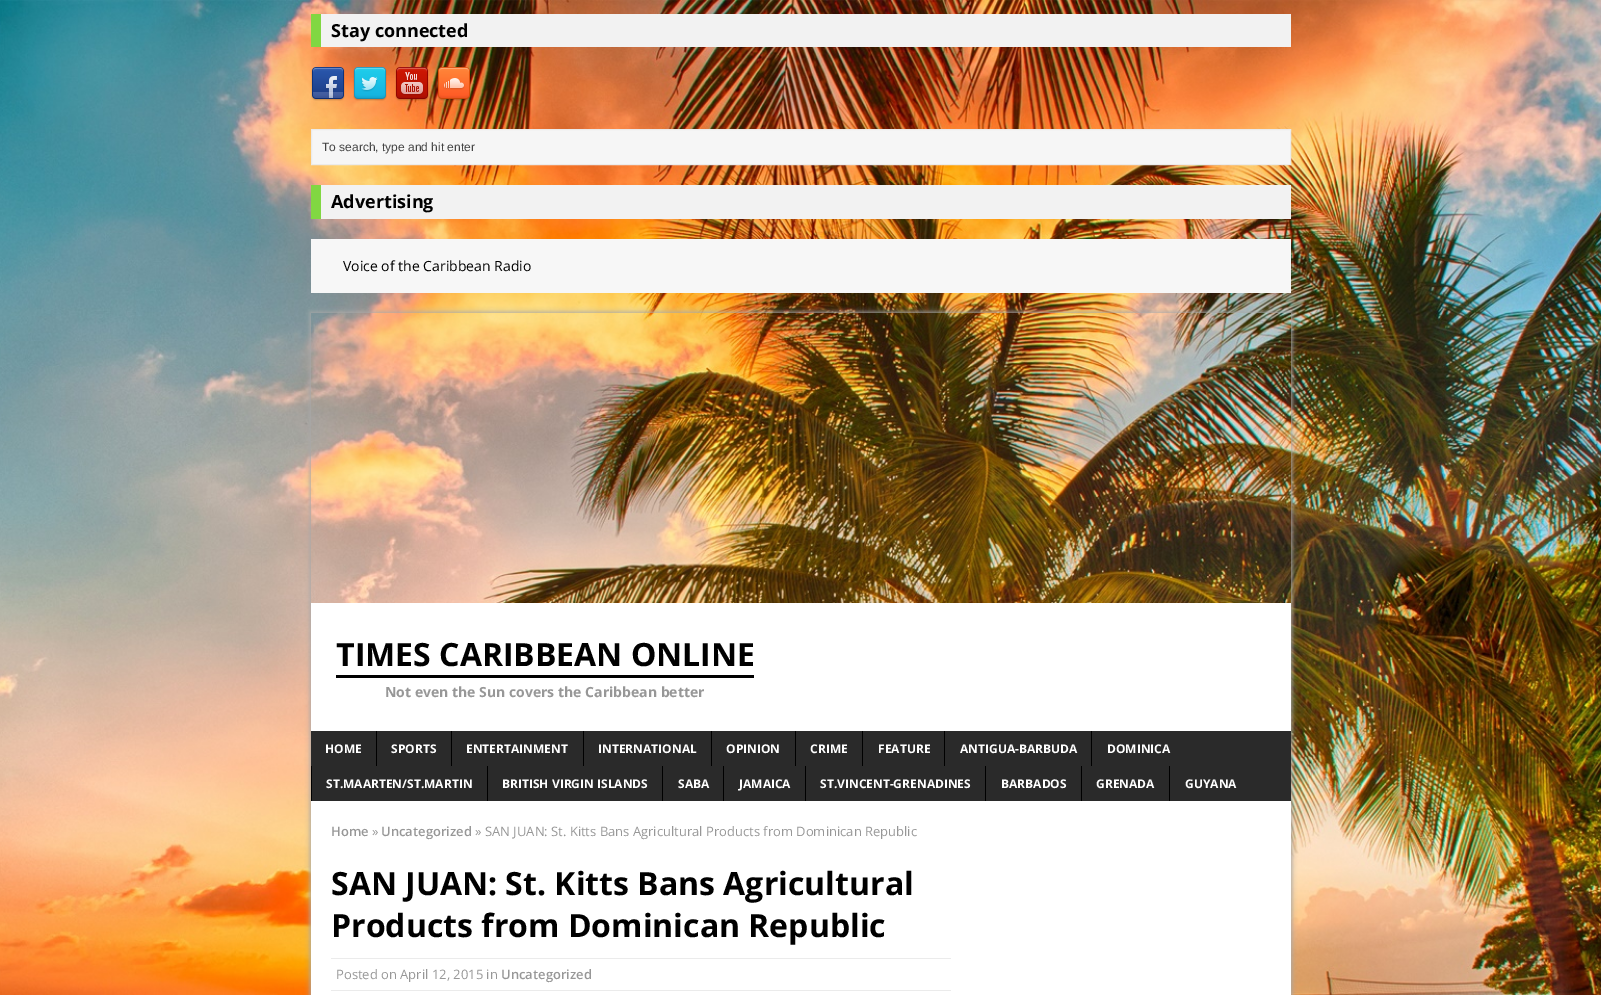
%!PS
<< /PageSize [1601 995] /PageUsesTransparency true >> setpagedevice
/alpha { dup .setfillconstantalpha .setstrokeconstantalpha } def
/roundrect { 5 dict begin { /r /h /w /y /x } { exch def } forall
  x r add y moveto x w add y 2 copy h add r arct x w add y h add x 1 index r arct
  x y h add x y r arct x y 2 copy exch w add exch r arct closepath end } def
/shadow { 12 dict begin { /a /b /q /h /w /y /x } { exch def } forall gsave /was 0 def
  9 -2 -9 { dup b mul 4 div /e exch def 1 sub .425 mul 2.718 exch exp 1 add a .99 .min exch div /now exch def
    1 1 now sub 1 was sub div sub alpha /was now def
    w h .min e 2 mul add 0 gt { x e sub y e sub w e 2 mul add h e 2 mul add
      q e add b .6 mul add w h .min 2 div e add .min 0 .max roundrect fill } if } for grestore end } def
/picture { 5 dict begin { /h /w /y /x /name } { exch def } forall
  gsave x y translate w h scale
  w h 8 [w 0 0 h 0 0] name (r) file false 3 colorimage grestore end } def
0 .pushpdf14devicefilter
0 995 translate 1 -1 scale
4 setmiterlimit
1 setgray
0 0 1601 995 rectfill
(img1.rgb) 0 0 1601 995 picture
0.949 setgray
321 14 970 33 rectfill
0.506 0.843 0.259 setrgbcolor
311 14 10 33 rectfill
/OpenSans-Bold [18 0 0 -18 0 0] selectfont
0 setgray
331 37 moveto (Stay connected) show
(img2.rgb) 311 67 34 34 picture
(img3.rgb) 353 67 34 34 picture
(img4.rgb) 395 67 34 34 picture
(img5.rgb) 437 67 34 34 picture
0.965 setgray
newpath 311.5 129.5 moveto 1290.5 129.5 lineto 1290.5 164.5 lineto 311.5 164.5 lineto closepath gsave fill grestore
0.922 setgray
stroke
/LiberationSans-Regular [12 0 0 -12 0 0] selectfont
0.267 setgray
322 151 moveto (To search, type and hit enter) show
0.949 setgray
321 185 970 34 rectfill
0.506 0.843 0.259 setrgbcolor
311 185 10 34 rectfill
/OpenSans-Bold [18 0 0 -18 0 0] selectfont
0 setgray
331 208 moveto (Advertising) show
0.969 setgray
311 239 980 54 rectfill
/OpenSans-Regular [14 0 0 -14 0 0] selectfont
0 setgray
343 271 moveto (Voice of the Caribbean Radio) show
gsave
newpath 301 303 moveto 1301 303 lineto 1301 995 lineto 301 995 lineto closepath 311 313 moveto 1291 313 lineto 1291 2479 lineto 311 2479 lineto closepath eoclip newpath
0.659 setgray
310 312 982 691 0 2.5 1 shadow
grestore
1 setgray
311 603 980 128 rectfill
0 setgray
336 675 418 3 rectfill
/OpenSans-Bold [32 0 0 -32 0 0] selectfont
336 666 moveto (TIMES CARIBBEAN ONLINE) show
/OpenSans-Bold [14 0 0 -14 0 0] selectfont
0.592 setgray
385 697 moveto (Not even the Sun covers the Caribbean better) show
0.165 setgray
311 731 980 70 rectfill
/OpenSans-Bold [12 0 0 -12 0 0] selectfont
1 setgray
325 753 moveto (HOME) show
0 setgray
376 731 1 35 rectfill
1 setgray
391 753 moveto (SPORTS) show
0 setgray
451 731 1 35 rectfill
1 setgray
466 753 moveto (ENTERTAINMENT) show
0 setgray
583 731 1 35 rectfill
1 setgray
598 753 moveto (INTERNATIONAL) show
0 setgray
711 731 1 35 rectfill
1 setgray
726 753 moveto (OPINION) show
0 setgray
795 731 1 35 rectfill
1 setgray
810 753 moveto (CRIME) show
0 setgray
862 731 1 35 rectfill
1 setgray
878 753 moveto (FEATURE) show
0 setgray
944 731 1 35 rectfill
1 setgray
960 753 moveto (ANTIGUA-BARBUDA) show
0 setgray
1091 731 1 35 rectfill
1 setgray
1107 753 moveto (DOMINICA) show
0 setgray
311 766 1 35 rectfill
1 setgray
326 788 moveto (ST.MAARTEN/ST.MARTIN) show
0 setgray
487 766 1 35 rectfill
1 setgray
502 788 moveto (BRITISH VIRGIN ISLANDS) show
0 setgray
662 766 1 35 rectfill
1 setgray
678 788 moveto (SABA) show
0 setgray
723 766 1 35 rectfill
1 setgray
739 788 moveto (JAMAICA) show
0 setgray
805 766 1 35 rectfill
1 setgray
820 788 moveto (ST.VINCENT-GRENADINES) show
0 setgray
985 766 1 35 rectfill
1 setgray
1001 788 moveto (BARBADOS) show
0 setgray
1081 766 1 35 rectfill
1 setgray
1096 788 moveto (GRENADA) show
0 setgray
1169 766 1 35 rectfill
1 setgray
1185 788 moveto (GUYANA) show
311 801 980 194 rectfill
/OpenSans-SemiBold [13 0 0 -13 0 0] selectfont
0.592 setgray
331 836 moveto (Home) show
/OpenSans-Regular [13 0 0 -13 0 0] selectfont
372 836 moveto (») show
/OpenSans-SemiBold [13 0 0 -13 0 0] selectfont
381 836 moveto (Uncategorized) show
/OpenSans-Regular [13 0 0 -13 0 0] selectfont
475 836 moveto (» SAN JUAN: St. Kitts Bans Agricultural Products from Dominican Republic) show
/OpenSans-Bold [32 0 0 -32 0 0] selectfont
0 setgray
331 895 moveto (SAN JUAN: St. Kitts Bans Agricultural) show
331 937 moveto (Products from Dominican Republic) show
0.922 setgray
331 958 620 1 rectfill
331 990 620 1 rectfill
/OpenSans-Regular [13 0 0 -13 0 0] selectfont
0.592 setgray
336 979 moveto (Posted on April 12, 2015 in) show
/OpenSans-SemiBold [13 0 0 -13 0 0] selectfont
501 979 moveto (Uncategorized) show
.poppdf14devicefilter showpage
